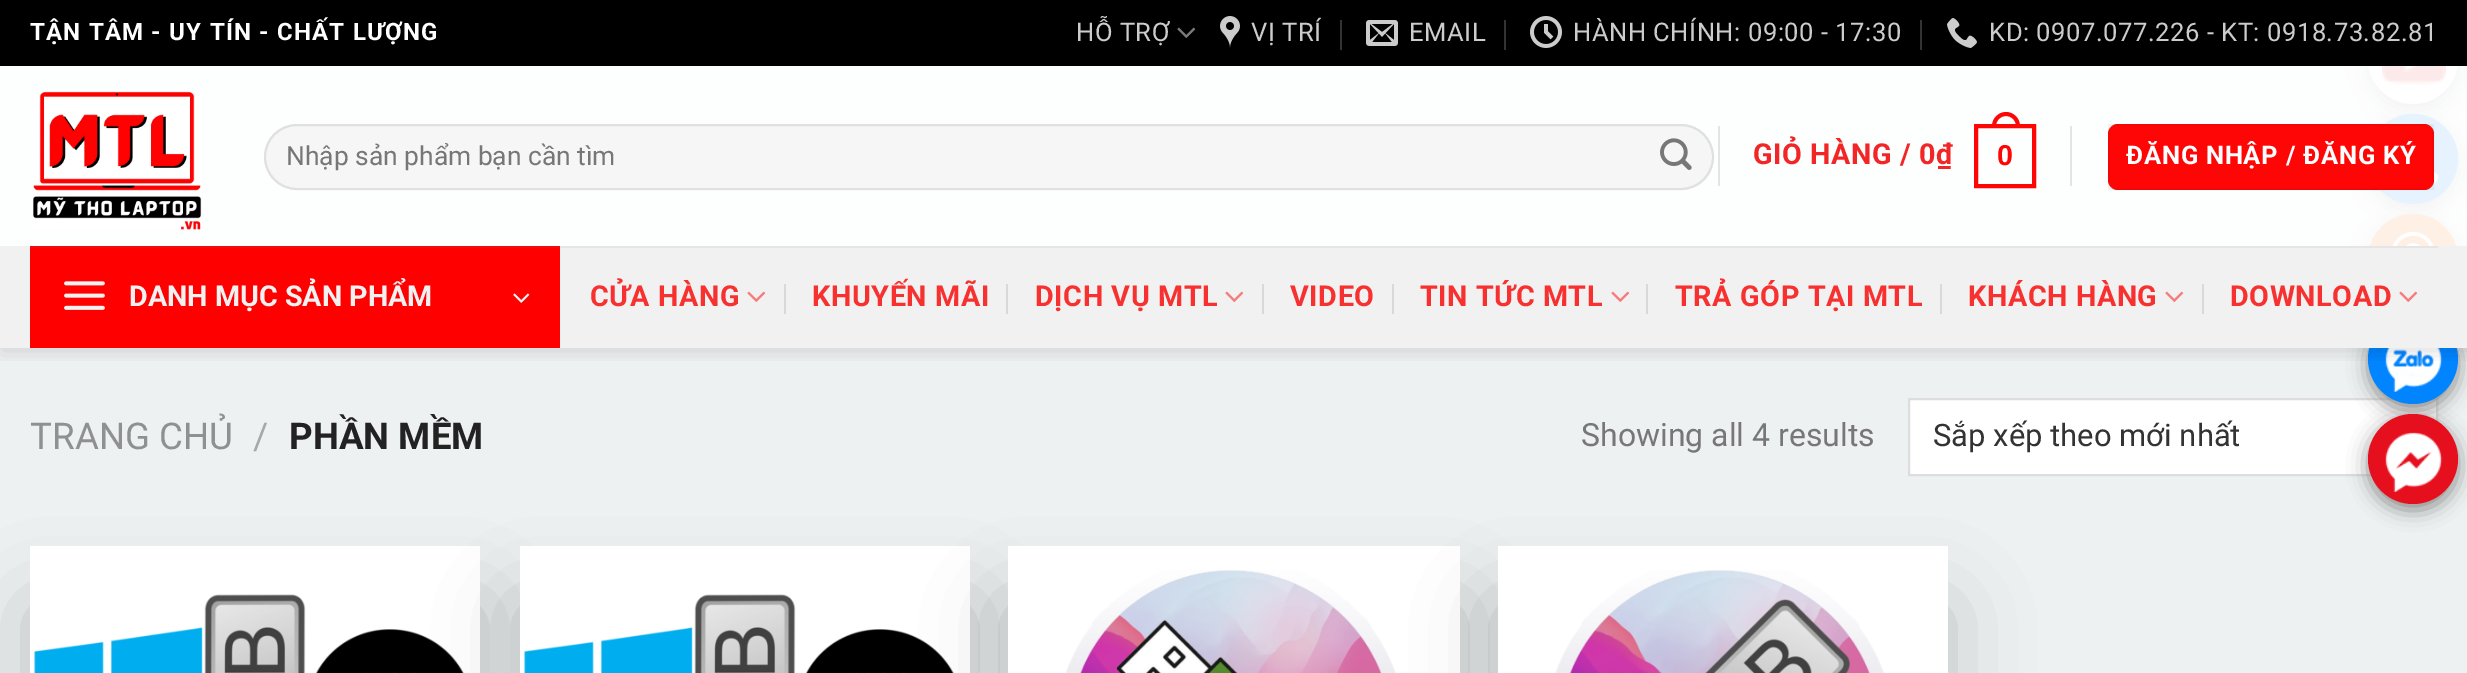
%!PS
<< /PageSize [2467 673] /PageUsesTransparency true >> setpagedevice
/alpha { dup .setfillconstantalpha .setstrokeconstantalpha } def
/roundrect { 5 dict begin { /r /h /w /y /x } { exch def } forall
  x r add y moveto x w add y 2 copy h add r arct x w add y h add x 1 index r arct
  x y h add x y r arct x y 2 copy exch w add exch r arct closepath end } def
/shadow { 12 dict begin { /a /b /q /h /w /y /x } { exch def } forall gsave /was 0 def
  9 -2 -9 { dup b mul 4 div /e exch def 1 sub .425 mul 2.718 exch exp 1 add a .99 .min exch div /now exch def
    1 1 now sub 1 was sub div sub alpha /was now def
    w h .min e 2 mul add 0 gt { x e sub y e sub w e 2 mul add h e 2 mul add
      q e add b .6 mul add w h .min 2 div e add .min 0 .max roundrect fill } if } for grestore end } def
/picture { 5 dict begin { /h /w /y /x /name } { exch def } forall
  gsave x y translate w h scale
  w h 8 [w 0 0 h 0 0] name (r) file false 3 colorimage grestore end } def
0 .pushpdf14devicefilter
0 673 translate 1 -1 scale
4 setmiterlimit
0.933 0.945 0.949 setrgbcolor
0 0 2467 673 rectfill
0.533 setgray
2368 20 90 90 45 10 1 shadow
1 setgray
newpath 2413 59 45 0 360 arc closepath fill
(img1.rgb) 2382 66 64 19 picture
0.533 setgray
2368 120 90 90 45 10 1 shadow
0 0.518 1 setrgbcolor
newpath 2413 159 45 0 360 arc closepath fill
(img2.rgb) 2432 171 7 14 picture
0.533 setgray
2368 220 90 90 45 10 1 shadow
1 0.4 0 setrgbcolor
newpath 2413 259 45 0 360 arc closepath fill
(img3.rgb) 2392 232 42 14 picture
1 setgray
newpath 1909 399 moveto 2437 399 lineto 2437 475 lineto 1909 475 lineto closepath gsave fill grestore
0.867 setgray
2 setlinewidth
stroke
0.533 setgray
2368 320 90 90 45 10 1 shadow
0 0.518 1 setrgbcolor
newpath 2413 359 45 0 360 arc closepath fill
(img4.rgb) 2385 348 58 44 picture
0.533 setgray
2368 420 90 90 45 10 1 shadow
0.902 0.059 0.118 setrgbcolor
newpath 2413 459 45 0 360 arc closepath fill
(img5.rgb) 2385 432 58 60 picture
gsave
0 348 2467 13 rectclip
0 setgray
2 2 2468 348 0 10 0.15 shadow
grestore
0 setgray
0 0 2467 66 rectfill
/Roboto-Bold [24 0 0 -24 0 0] selectfont
1 setgray
30 40 moveto 1.2 0 (TẬN TÂM - UY TÍN - CHẤT LƯỢNG) ashow
/Roboto-Regular [25.6 0 0 -25.6 0 0] selectfont
0.8 setgray
1076 41 moveto 0.5 0 (HỖ TRỢ) ashow
(img6.rgb) 1177 27 19 11 picture
(img7.rgb) 1220 16 20 32 picture
1251 41 moveto 0.5 0 (VỊ TRÍ) ashow
0.2 setgray
1340 20 2 30 rectfill
(img8.rgb) 1366 20 32 26 picture
0.8 setgray
1409 41 moveto 0.5 0 (EMAIL) ashow
0.2 setgray
1504 20 2 30 rectfill
(img9.rgb) 1530 16 32 32 picture
0.8 setgray
1573 41 moveto 0.5 0 (HÀNH CHÍNH: 09:00 - 17:30) ashow
0.2 setgray
1920 20 2 30 rectfill
(img10.rgb) 1947 18 30 30 picture
0.8 setgray
1989 41 moveto 0.5 0 (KD: 0907.077.226 - KT: 0918.73.82.81) ashow
0.9 alpha
1 setgray
0 66 2467 180 rectfill
1 alpha
(img11.rgb) 33 91 169 139 picture
0.965 setgray
264 124 1450 66 33 roundrect fill
0.09 alpha
0 setgray
265 125 1448 64 32 roundrect stroke
/Roboto-Regular [26.4 0 0 -26.4 0 0] selectfont
1 alpha
0.467 setgray
286 165 moveto (Nhập sản phẩm bạn cần tìm) show
(img12.rgb) 1660 138 32 32 picture
0.894 setgray
1718 126 2 60 rectfill
/Roboto-Bold [28.75 0 0 -28.75 0 0] selectfont
0.949 0.149 0.149 setrgbcolor
1753 164 moveto 0.6 0 (GIỎ HÀNG / 0₫) ashow
1 0.024 0.024 setrgbcolor
4 setlinewidth
1976 126 58 60 rectstroke
newpath 2006 112 moveto 2013.5 112 2020 118.5 2020 126 curveto 2020 128 lineto 1992 128 lineto 1992 126 lineto 1992 118.5 1998.5 112 2006 112 curveto closepath 2006 116 moveto 2011.5 116 2016 120.5 2016 126 curveto 2016 128 lineto 1996 128 lineto 1996 126 lineto 1996 120.5 2000.5 116 2006 116 curveto closepath eofill
/LiberationSans-Bold [28.75 0 0 -28.75 0 0] selectfont
1997 165 moveto 0.6 0 (0) ashow
0.894 setgray
2070 126 2 60 rectfill
1 0.024 0.024 setrgbcolor
2108 124 326 66 10 roundrect fill
0.05 alpha
0 setgray
2 setlinewidth
2109 125 324 64 rectstroke
/Roboto-Bold [25.6 0 0 -25.6 0 0] selectfont
1 alpha
1 setgray
2126 164 moveto 0.75 0 (ĐĂNG NHẬP / ĐĂNG KÝ) ashow
0.945 setgray
0 246 2467 102 rectfill
1 0 0 setrgbcolor
30 246 530 102 rectfill
0.1 alpha
0.467 setgray
30 246 2408 2 rectfill
1 alpha
(img13.rgb) 64 281 41 29 picture
/Roboto-Bold [28.75 0 0 -28.75 0 0] selectfont
0.945 setgray
129 306 moveto (DANH MỤC SẢN PHẨM) show
(img14.rgb) 513 293 17 10 picture
0.969 0.188 0.188 setrgbcolor
590 306 moveto 0.6 0 (CỬA HÀNG) ashow
(img15.rgb) 747 291 19 11 picture
0.851 setgray
784 284 2 30 rectfill
0.969 0.188 0.188 setrgbcolor
812 306 moveto 0.6 0 (KHUYẾN MÃI) ashow
0.851 setgray
1006 284 2 30 rectfill
0.969 0.188 0.188 setrgbcolor
1035 306 moveto 0.6 0 (DỊCH VỤ MTL) ashow
(img15.rgb) 1225 291 19 11 picture
0.851 setgray
1262 284 2 30 rectfill
0.969 0.188 0.188 setrgbcolor
1290 306 moveto 0.6 0 (VIDEO) ashow
0.851 setgray
1392 284 2 30 rectfill
0.969 0.188 0.188 setrgbcolor
1420 306 moveto 0.6 0 (TIN TỨC MTL) ashow
(img15.rgb) 1611 291 19 11 picture
0.851 setgray
1646 284 2 30 rectfill
0.969 0.188 0.188 setrgbcolor
1675 306 moveto 0.6 0 (TRẢ GÓP TẠI MTL) ashow
0.851 setgray
1940 284 2 30 rectfill
0.969 0.188 0.188 setrgbcolor
1968 306 moveto 0.6 0 (KHÁCH HÀNG) ashow
(img15.rgb) 2165 291 19 11 picture
0.851 setgray
2202 284 2 30 rectfill
0.969 0.188 0.188 setrgbcolor
2230 306 moveto 0.6 0 (DOWNLOAD) ashow
(img15.rgb) 2399 291 19 11 picture
/Roboto-Regular [36.75 0 0 -36.75 0 0] selectfont
0.561 0.565 0.565 setrgbcolor
30 449 moveto (TRANG CHỦ) show
0.655 0.663 0.663 setrgbcolor
253 449 moveto (/) show
/Roboto-Bold [36.75 0 0 -36.75 0 0] selectfont
0.133 setgray
289 449 moveto (PHẦN MỀM) show
/Roboto-Regular [32 0 0 -32 0 0] selectfont
0.467 setgray
1581 446 moveto (Showing all 4 results) show
/Roboto-Regular [31 0 0 -31 0 0] selectfont
0.2 setgray
1933 446 moveto (Sắp xếp theo mới nhất) show
0 setgray
30 606 450 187 0 40 0.2 shadow
1 setgray
30 546 450 127 rectfill
(img16.rgb) 34 594 430 79 picture
0 setgray
520 606 450 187 0 40 0.2 shadow
1 setgray
520 546 450 127 rectfill
(img17.rgb) 524 594 430 79 picture
0 setgray
1008 606 452 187 0 40 0.2 shadow
1 setgray
1008 546 452 127 rectfill
(img18.rgb) 1065 570 331 103 picture
0 setgray
1498 606 450 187 0 40 0.2 shadow
1 setgray
1498 546 450 127 rectfill
(img19.rgb) 1555 570 329 103 picture
.poppdf14devicefilter showpage
